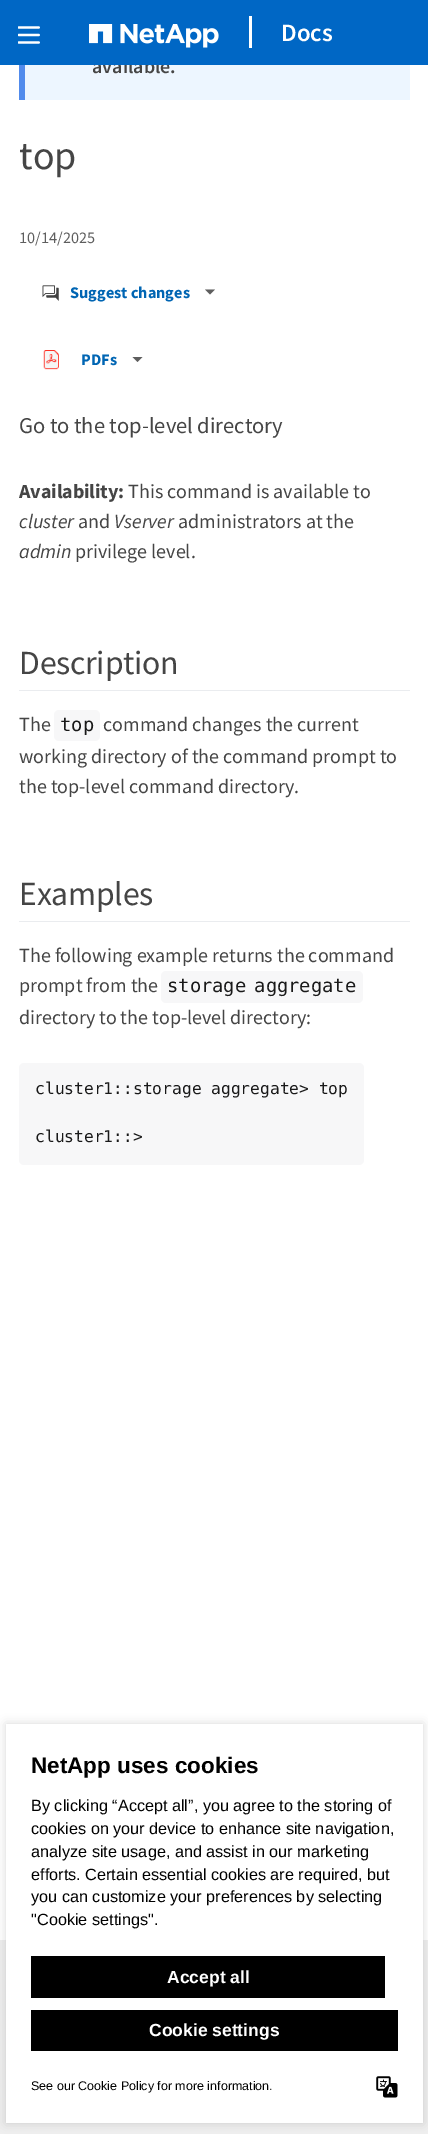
%!PS
<< /PageSize [428 2134] /PageUsesTransparency true >> setpagedevice
/alpha { dup .setfillconstantalpha .setstrokeconstantalpha } def
/roundrect { 5 dict begin { /r /h /w /y /x } { exch def } forall
  x r add y moveto x w add y 2 copy h add r arct x w add y h add x 1 index r arct
  x y h add x y r arct x y 2 copy exch w add exch r arct closepath end } def
/shadow { 12 dict begin { /a /b /q /h /w /y /x } { exch def } forall gsave /was 0 def
  9 -2 -9 { dup b mul 4 div /e exch def 1 sub .425 mul 2.718 exch exp 1 add a .99 .min exch div /now exch def
    1 1 now sub 1 was sub div sub alpha /was now def
    w h .min e 2 mul add 0 gt { x e sub y e sub w e 2 mul add h e 2 mul add
      q e add b .6 mul add w h .min 2 div e add .min 0 .max roundrect fill } if } for grestore end } def
/picture { 5 dict begin { /h /w /y /x /name } { exch def } forall
  gsave x y translate w h scale
  w h 8 [w 0 0 h 0 0] name (r) file false 3 colorimage grestore end } def
0 .pushpdf14devicefilter
0 2134 translate 1 -1 scale
4 setmiterlimit
1 setgray
0 0 428 2134 rectfill
0.929 0.965 1 setrgbcolor
25 65 385 35 rectfill
/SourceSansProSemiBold-SemiBold [20 0 0 -20 0 0] selectfont
0.271 setgray
92 73 moveto (available.) show
0 0.404 0.773 setrgbcolor
0 0 428 65 rectfill
(img1.rgb) 18 26 22 18 picture
(img2.rgb) 89 24 130 24 picture
1 setgray
249 16 3 32 rectfill
/SourceSansProSemiBold-SemiBold [25 0 0 -25 0 0] selectfont
281 41 moveto (Docs) show
0.318 0.545 0.925 setrgbcolor
19 65 6 35 rectfill
/SourceSansPro-Regular [40 0 0 -40 0 0] selectfont
0.271 setgray
19 169 moveto (top) show
/SourceSansPro-Regular [16.25 0 0 -16.25 0 0] selectfont
0.369 setgray
19 243 moveto (10/14/2025) show
(img3.rgb) 42 285 17 16 picture
/SourceSansPro-Bold [16.25 0 0 -16.25 0 0] selectfont
0 0.396 0.702 setrgbcolor
70 298 moveto (Suggest changes) show
0.369 setgray
newpath 210 294.5 moveto 205 289.5 lineto 215 289.5 lineto closepath fill
(img4.rgb) 43 350 16 20 picture
0 0.396 0.702 setrgbcolor
81 365 moveto (PDFs) show
0.369 setgray
newpath 137.5 362 moveto 132.5 357 lineto 142.5 357 lineto closepath fill
/SourceSansPro-Regular [22.5 0 0 -22.5 0 0] selectfont
0.271 setgray
19 433 moveto (Go to the top-level directory) show
/SourceSansPro-Bold [20 0 0 -20 0 0] selectfont
19 498 moveto -0.1 0 (Availability:) ashow
/SourceSansPro-Regular [20 0 0 -20 0 0] selectfont
128 498 moveto (This command is available to) show
/SourceSansPro-Italic [20 0 0 -20 0 0] selectfont
19 528 moveto (cluster) show
/SourceSansPro-Regular [20 0 0 -20 0 0] selectfont
78 528 moveto (and) show
/SourceSansPro-Italic [20 0 0 -20 0 0] selectfont
114 528 moveto (Vserver) show
/SourceSansPro-Regular [20 0 0 -20 0 0] selectfont
178 528 moveto (administrators at the) show
/SourceSansPro-Italic [20 0 0 -20 0 0] selectfont
19 558 moveto (admin) show
/SourceSansPro-Regular [20 0 0 -20 0 0] selectfont
75 558 moveto (privilege level.) show
0.918 0.925 0.937 setrgbcolor
19 690 391 1 rectfill
/SourceSansPro-Regular [33.75 0 0 -33.75 0 0] selectfont
0.271 setgray
19 674 moveto -0.25 0 (Description) ashow
/SourceSansPro-Regular [20 0 0 -20 0 0] selectfont
19 731 moveto (The) show
0.969 0.969 0.973 setrgbcolor
54 710 46 31 5 roundrect fill
/DejaVuSansMono-Regular [18.75 0 0 -18.75 0 0] selectfont
0.098 setgray
60 731 moveto (top) show
/SourceSansPro-Regular [20 0 0 -20 0 0] selectfont
0.271 setgray
103 731 moveto (command changes the current) show
19 763 moveto (working directory of the command prompt to) show
19 793 moveto (the top-level command directory.) show
0.918 0.925 0.937 setrgbcolor
19 921 391 1 rectfill
/SourceSansPro-Regular [33.75 0 0 -33.75 0 0] selectfont
0.271 setgray
19 905 moveto -0.25 0 (Examples) ashow
/SourceSansPro-Regular [20 0 0 -20 0 0] selectfont
19 962 moveto (The following example returns the command) show
19 992 moveto (prompt from the) show
0.969 0.969 0.973 setrgbcolor
161 971 202 32 5 roundrect fill
/DejaVuSansMono-Regular [18.75 0 0 -18.75 0 0] selectfont
0.098 setgray
167 992 moveto -3 0 32 (storage aggregate) widthshow
/SourceSansPro-Regular [20 0 0 -20 0 0] selectfont
0.271 setgray
19 1024 moveto (directory to the top-level directory:) show
0.969 0.969 0.973 setrgbcolor
19 1063 345 102 5 roundrect fill
/DejaVuSansMono-Regular [16.25 0 0 -16.25 0 0] selectfont
0.098 setgray
35 1094 moveto (cluster1::storage aggregate> top) show
35 1142 moveto (cluster1::>) show
0.937 setgray
0 1940 428 194 rectfill
0 setgray
6 1724 417 399 0 5 0.15 shadow
1 setgray
6 1724 417 399 rectfill
/LiberationSans-Bold [22.5 0 0 -22.5 0 0] selectfont
0 setgray
31 1773 moveto (NetApp uses cookies) show
/LiberationSans-Regular [16.25 0 0 -16.25 0 0] selectfont
31 1811 moveto (By clicking “Accept all”, you agree to the storing of) show
31 1834 moveto (cookies on your device to enhance site navigation,) show
31 1857 moveto (analyze site usage, and assist in our marketing) show
31 1880 moveto (efforts. Certain essential cookies are required, but) show
31 1902 moveto (you can customize your preferences by selecting) show
31 1925 moveto ("Cookie settings".) show
31 1956 354 42 rectfill
/LiberationSans-Bold [17.5 0 0 -17.5 0 0] selectfont
1 setgray
167 1983 moveto (Accept all) show
0 setgray
31 2010 367 41 rectfill
1 setgray
149 2036 moveto (Cookie settings) show
/LiberationSans-Regular [12.5 0 0 -12.5 0 0] selectfont
0 setgray
31 2090 moveto (See our Cookie Policy for more information.) show
(img5.rgb) 376 2076 22 22 picture
.poppdf14devicefilter showpage
